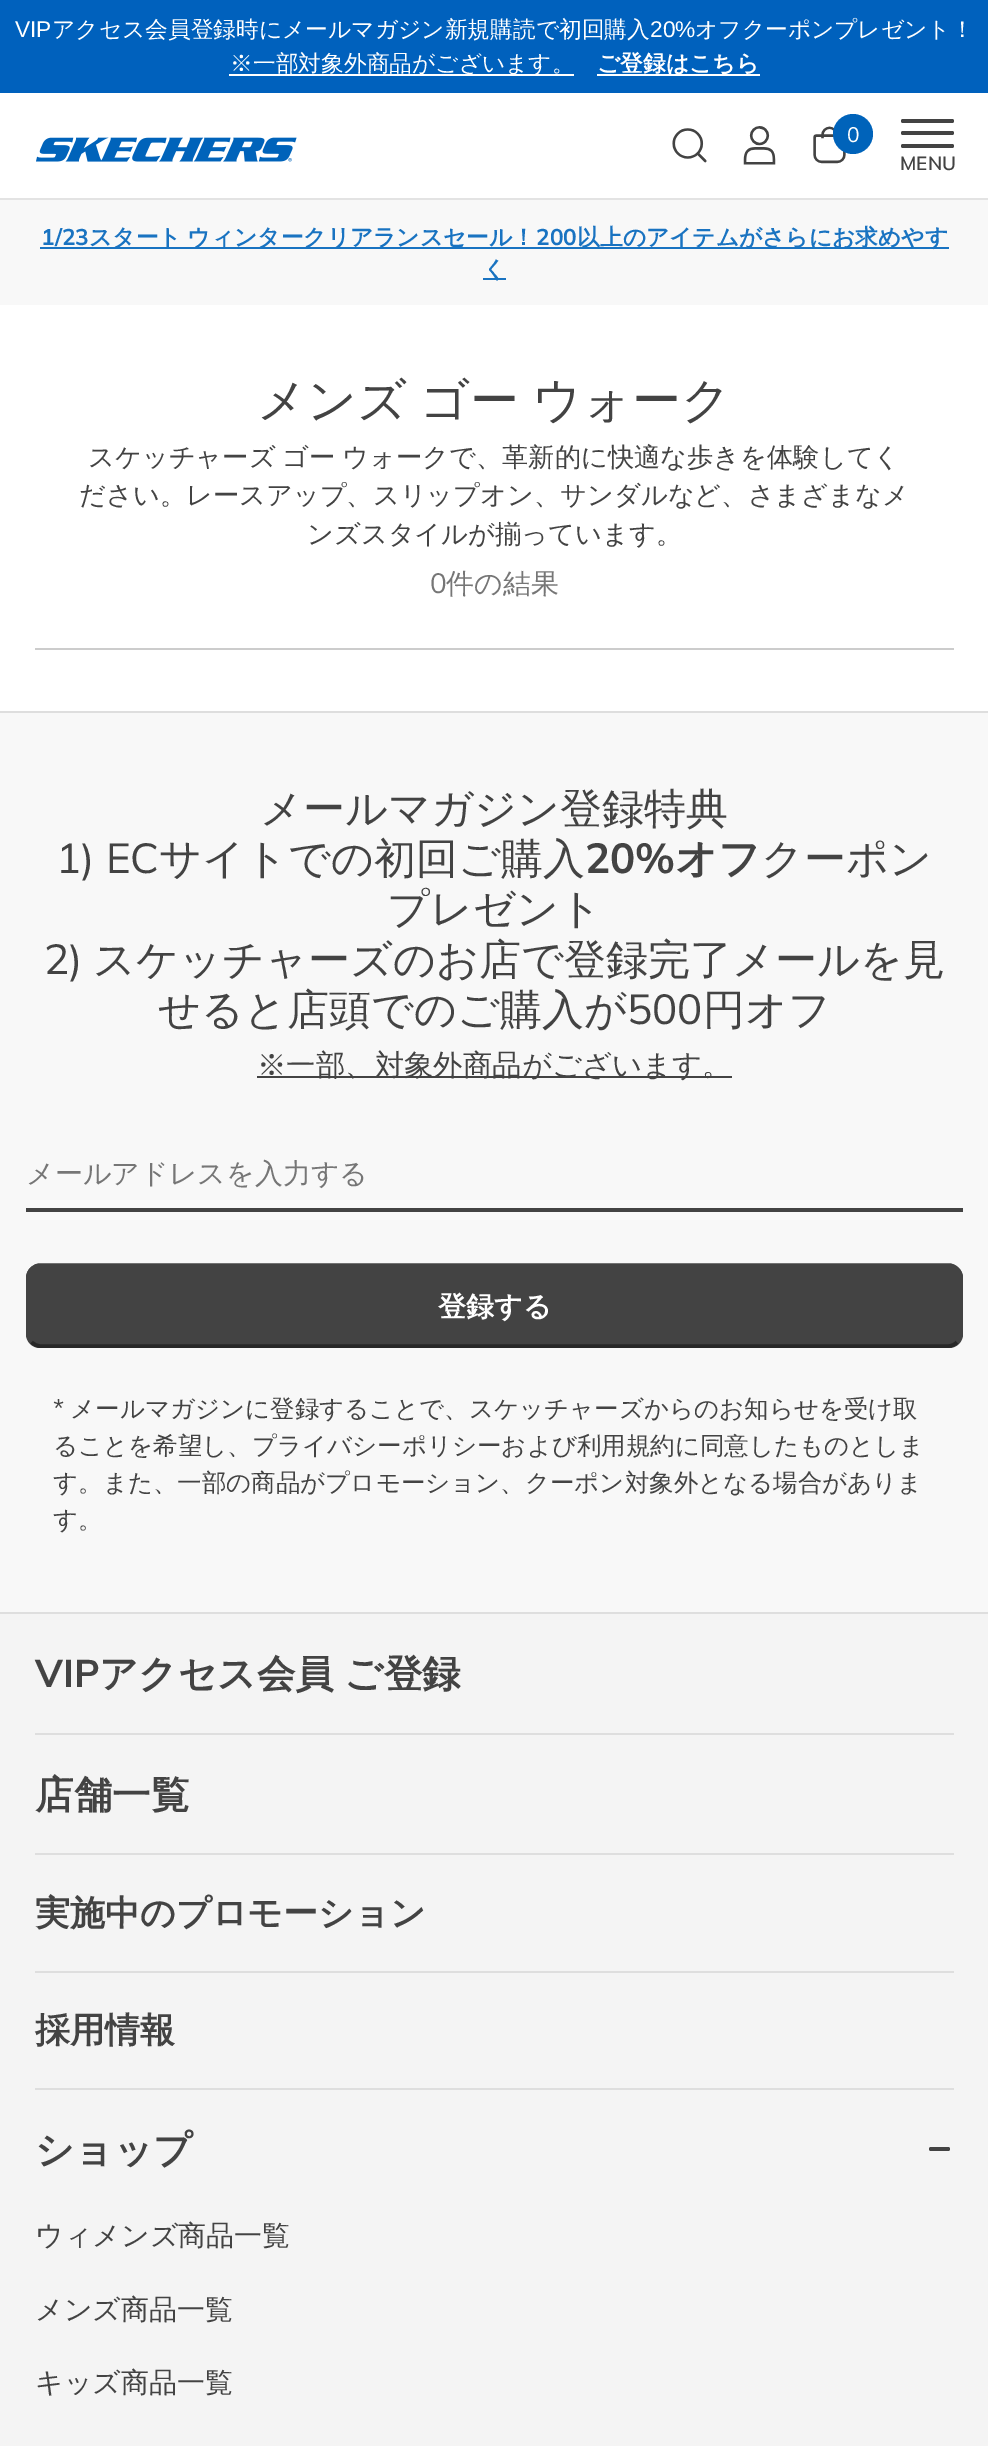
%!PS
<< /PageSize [988 2446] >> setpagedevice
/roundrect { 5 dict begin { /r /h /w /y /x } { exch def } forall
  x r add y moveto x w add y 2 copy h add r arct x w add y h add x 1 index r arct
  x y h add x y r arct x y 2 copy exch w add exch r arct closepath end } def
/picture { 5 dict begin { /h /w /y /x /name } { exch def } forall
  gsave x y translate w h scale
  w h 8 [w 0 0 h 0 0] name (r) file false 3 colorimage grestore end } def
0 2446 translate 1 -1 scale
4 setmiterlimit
1 setgray
0 0 988 2446 rectfill
0 0.38 0.741 setrgbcolor
0 0 988 93 rectfill
/LiberationSans-Regular [22.75 0 0 -22.75 0 0] selectfont
1 setgray
15 37 moveto (VIP) show
/WenQuanYiZenHei-Medium [22.75 0 0 -22.75 0 0] selectfont
52 37 moveto (アクセス会員登録時にメールマガジン新規購読で初回購入) show
/LiberationSans-Regular [22.75 0 0 -22.75 0 0] selectfont
650 37 moveto (20%) show
/WenQuanYiZenHei-Medium [22.75 0 0 -22.75 0 0] selectfont
695 37 moveto (オフクーポンプレゼント！) show
229 74 345 2 rectfill
230 71 moveto (※一部対象外商品がございます。) show
597 74 163 2 rectfill
/WenQuanYiZenHei-Bold [22.75 0 0 -22.75 0 0] selectfont
597 71 moveto (ご登録はこちら) show
0.89 setgray
0 198 988 2 rectfill
(img1.rgb) 36 137 261 25 picture
(img2.rgb) 672 128 35 35 picture
(img3.rgb) 743 126 33 39 picture
(img4.rgb) 813 126 33 38 picture
0 0.388 0.729 setrgbcolor
newpath 853 134 20 0 360 arc closepath fill
/Mulish-Regular [21 0 0 -21 0 0] selectfont
1 setgray
847 142 moveto (0) show
0.263 setgray
901 119 53 4 2 roundrect fill
901 131 53 4 2 roundrect fill
901 144 53 4 2 roundrect fill
/Mulish-SemiBold [19 0 0 -19 0 0] selectfont
900 170 moveto (MENU) show
0.973 setgray
0 200 988 105 rectfill
/Mulish-Bold [22.75 0 0 -22.75 0 0] selectfont
0.098 0.451 0.757 setrgbcolor
41 245 moveto (1/23) show
40 247 909 2 rectfill
/WenQuanYiZenHei-Bold [22.75 0 0 -22.75 0 0] selectfont
89 245 moveto -1 0 32 (スタート ウィンタークリアランスセール！) widthshow
/Mulish-Bold [22.75 0 0 -22.75 0 0] selectfont
536 245 moveto (200) show
/WenQuanYiZenHei-Bold [22.75 0 0 -22.75 0 0] selectfont
577 245 moveto (以上のアイテムがさらにお求めやす) show
483 278 23 2 rectfill
483 277 moveto (く) show
/WenQuanYiZenHei-Medium [49 0 0 -49 0 0] selectfont
0.263 setgray
257 417 moveto -2 0 32 (メンズ ゴー ウォーク) widthshow
/WenQuanYiZenHei-Medium [26.25 0 0 -26.25 0 0] selectfont
88 466 moveto -1 0 32 (スケッチャーズ ゴー ウォークで、革新的に快適な歩きを体験してく) widthshow
79 504 moveto (ださい。レースアップ、スリップオン、サンダルなど、さまざまなメ) show
307 543 moveto (ンズスタイルが揃っています。) show
/Mulish-Regular [28 0 0 -28 0 0] selectfont
0.463 setgray
430 593 moveto (0) show
/WenQuanYiZenHei-Medium [28 0 0 -28 0 0] selectfont
446 593 moveto (件の結果) show
0.8 setgray
35 648 919 2 rectfill
0.973 setgray
0 713 988 899 rectfill
0.871 setgray
0 711 988 2 rectfill
0 1612 988 2 rectfill
/WenQuanYiZenHei-Medium [42 0 0 -42 0 0] selectfont
0.263 setgray
260 823 moveto (メールマガジン登録特典) show
/Mulish-Regular [42 0 0 -42 0 0] selectfont
56 873 moveto (1\) EC) show
/WenQuanYiZenHei-Medium [42 0 0 -42 0 0] selectfont
159 873 moveto (サイトでの初回ご購入) show
/Mulish-Bold [42 0 0 -42 0 0] selectfont
585 873 moveto (20%) show
/WenQuanYiZenHei-Bold [42 0 0 -42 0 0] selectfont
675 873 moveto (オフ) show
/WenQuanYiZenHei-Medium [42 0 0 -42 0 0] selectfont
761 873 moveto (クーポン) show
387 923 moveto (プレゼント) show
/Mulish-Regular [42 0 0 -42 0 0] selectfont
44 974 moveto (2\)) show
/WenQuanYiZenHei-Medium [42 0 0 -42 0 0] selectfont
93 974 moveto (スケッチャーズのお店で登録完了メールを見) show
158 1024 moveto (せると店頭でのご購入が) show
/Mulish-Regular [42 0 0 -42 0 0] selectfont
627 1024 moveto (500) show
/WenQuanYiZenHei-Medium [42 0 0 -42 0 0] selectfont
703 1024 moveto (円オフ) show
257 1076 475 2 rectfill
/WenQuanYiZenHei-Medium [29.4 0 0 -29.4 0 0] selectfont
257 1075 moveto (※一部、対象外商品がございます。) show
26 1208 937 4 rectfill
/WenQuanYiZenHei-Medium [28 0 0 -28 0 0] selectfont
0.463 setgray
26 1183 moveto (メールアドレスを入力する) show
0.263 setgray
26 1264 937 84 14 roundrect fill
0.157 setgray
3.5 setlinewidth
newpath 957 1342 moveto 955 1344.5 951.5 1346 948.5 1346 curveto 40.5 1346 lineto 37 1346 34 1344.5 31.5 1342 curveto stroke
0.263 setgray
newpath 31.5 1342 moveto 29.5 1340 28 1336.5 28 1333.5 curveto 28 1277.5 lineto 28 1274.5 29.5 1271 31.5 1269 curveto 34 1266.5 37 1265 40 1265 curveto 948.5 1265 lineto 951.5 1265 955 1266.5 957 1269 curveto 959.5 1271 961 1274.5 961 1277.5 curveto 961 1333.5 lineto 961 1336.5 959.5 1340 957 1342 curveto stroke
/WenQuanYiZenHei-Bold [28 0 0 -28 0 0] selectfont
1 setgray
438 1316 moveto (登録する) show
/Mulish-Regular [24.5 0 0 -24.5 0 0] selectfont
0.263 setgray
53 1417 moveto (*) show
/WenQuanYiZenHei-Medium [24.5 0 0 -24.5 0 0] selectfont
70 1417 moveto (メールマガジンに登録することで、スケッチャーズからのお知らせを受け取) show
53 1454 moveto (ることを希望し、プライバシーポリシーおよび利用規約に同意したものとしま) show
53 1491 moveto (す。また、一部の商品がプロモーション、クーポン対象外となる場合がありま) show
53 1528 moveto (す。) show
0.957 setgray
0 1614 988 832 rectfill
0.871 setgray
35 1733 919 2 rectfill
/Mulish-Bold [38.5 0 0 -38.5 0 0] selectfont
0.263 setgray
35 1687 moveto (VIP) show
/WenQuanYiZenHei-Bold [38.5 0 0 -38.5 0 0] selectfont
99 1687 moveto -1 0 32 (アクセス会員 ご登録) widthshow
0.871 setgray
35 1853 919 2 rectfill
0.263 setgray
35 1808 moveto (店舗一覧) show
0.871 setgray
35 1971 919 2 rectfill
/WenQuanYiZenHei-Bold [35 0 0 -35 0 0] selectfont
0.263 setgray
35 1925 moveto (実施中のプロモーション) show
0.871 setgray
35 2088 919 2 rectfill
0.263 setgray
35 2042 moveto (採用情報) show
/WenQuanYiZenHei-Bold [38.5 0 0 -38.5 0 0] selectfont
35 2163 moveto (ショップ) show
929 2147 21 4 2 roundrect fill
/WenQuanYiZenHei-Medium [28 0 0 -28 0 0] selectfont
35 2245 moveto (ウィメンズ商品一覧) show
35 2319 moveto (メンズ商品一覧) show
35 2392 moveto (キッズ商品一覧) show
showpage
